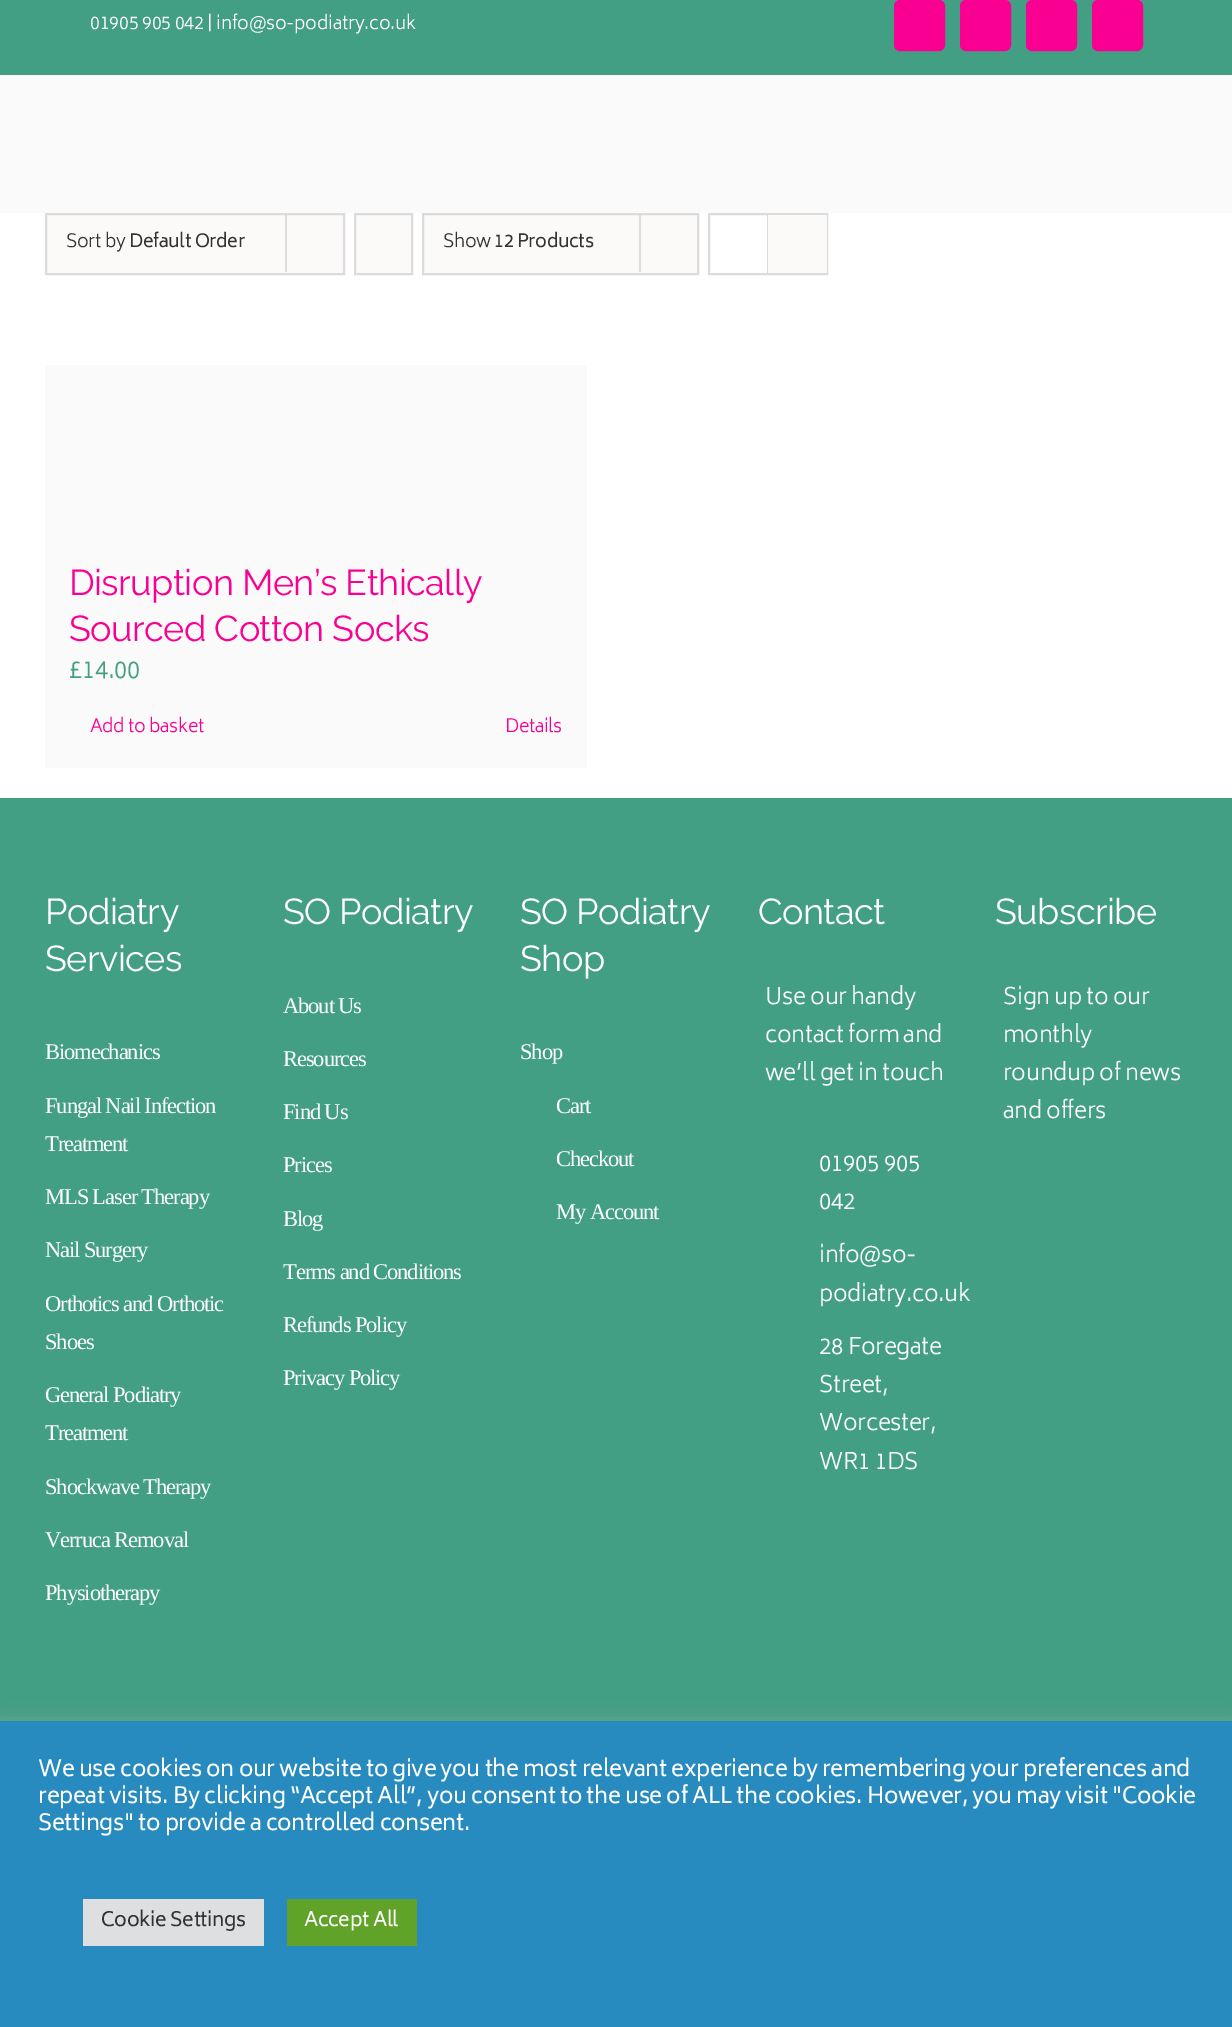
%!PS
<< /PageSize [1232 2027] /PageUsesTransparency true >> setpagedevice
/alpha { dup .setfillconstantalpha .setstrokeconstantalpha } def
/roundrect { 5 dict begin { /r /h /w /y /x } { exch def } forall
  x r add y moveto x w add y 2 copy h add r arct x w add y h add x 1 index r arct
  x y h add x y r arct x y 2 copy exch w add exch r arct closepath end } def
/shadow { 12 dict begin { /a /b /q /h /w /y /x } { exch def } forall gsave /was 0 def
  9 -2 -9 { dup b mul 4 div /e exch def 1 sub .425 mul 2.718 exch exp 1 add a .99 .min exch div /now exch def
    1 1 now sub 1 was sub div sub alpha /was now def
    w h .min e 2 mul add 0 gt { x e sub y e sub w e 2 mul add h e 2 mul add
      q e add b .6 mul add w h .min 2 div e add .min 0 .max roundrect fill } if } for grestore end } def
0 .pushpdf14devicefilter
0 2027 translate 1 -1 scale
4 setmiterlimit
1 setgray
0 0 1232 2027 rectfill
0.263 0.624 0.514 setrgbcolor
0 0 1232 75 rectfill
/Biryani-Light [18 0 0 -18 0 0] selectfont
1 setgray
90 29 moveto -0.25 0 (01905 905 042 | info@so-podiatry.co.uk) ashow
0.976 0 0.576 setrgbcolor
895 1 49 49 5 roundrect gsave fill grestore
2 setlinewidth
stroke
961 1 49 49 5 roundrect gsave fill grestore
stroke
1027 1 49 49 5 roundrect gsave fill grestore
stroke
1093 1 49 49 5 roundrect gsave fill grestore
stroke
0.98 setgray
0 75 1232 138 rectfill
0.984 0.98 0.976 setrgbcolor
newpath 46 214 moveto 344 214 lineto 344 274 lineto 46 274 lineto closepath gsave fill grestore
0.859 setgray
stroke
0.2 setgray
66 247 moveto -0.36 0 (Sort by) ashow
/Biryani-Regular [18 0 0 -18 0 0] selectfont
129 247 moveto -0.36 0 (Default Order) ashow
0.859 setgray
285 213 2 59 rectfill
0.984 0.98 0.976 setrgbcolor
newpath 355 214 moveto 412 214 lineto 412 274 lineto 355 274 lineto closepath gsave fill grestore
0.859 setgray
stroke
0.984 0.98 0.976 setrgbcolor
newpath 423 214 moveto 698 214 lineto 698 274 lineto 423 274 lineto closepath gsave fill grestore
0.859 setgray
stroke
/Biryani-Light [18 0 0 -18 0 0] selectfont
0.2 setgray
443 247 moveto -0.36 0 (Show) ashow
/Biryani-Regular [18 0 0 -18 0 0] selectfont
494 247 moveto -0.36 0 (12 Products) ashow
0.859 setgray
639 213 2 59 rectfill
709 214 118 60 rectstroke
767 215 1 58 rectfill
0.984 0.98 0.976 setrgbcolor
768 215 59 58 rectfill
0.98 setgray
47 367 538 398 rectfill
45 365 542 2 rectfill
585 365 2 403 rectfill
45 765 542 3 rectfill
45 365 2 403 rectfill
/Raleway-Regular [36 0 0 -36 0 0] selectfont
0.976 0 0.576 setrgbcolor
69 595 moveto -0.55 0 (Disruption Men’s Ethically) ashow
69 641 moveto -0.55 0 (Sourced Cotton Socks) ashow
/Biryani-Light [24 0 0 -24 0 0] selectfont
0.263 0.624 0.514 setrgbcolor
69 678 moveto -0.36 0 (£14.00) ashow
/Biryani-Light [18 0 0 -18 0 0] selectfont
0.976 0 0.576 setrgbcolor
90 732 moveto -0.36 0 (Add to basket) ashow
505 732 moveto -0.36 0 (Details) ashow
0.263 0.624 0.514 setrgbcolor
0 798 1232 923 rectfill
/Raleway-Regular [36 0 0 -36 0 0] selectfont
1 setgray
45 924 moveto -0.55 0 (Podiatry) ashow
45 971 moveto -0.55 0 (Services) ashow
/LiberationSerif-Regular [22.5 0 0 -22.5 0 0] selectfont
45 1059 moveto -1.1 0 (Biomechanics) ashow
45 1113 moveto -1.1 0 (Fungal Nail Infection) ashow
45 1151 moveto -1.1 0 (Treatment) ashow
45 1204 moveto -1.1 0 (MLS Laser Therapy) ashow
45 1257 moveto -1.1 0 (Nail Surgery) ashow
45 1311 moveto -1.1 0 (Orthotics and Orthotic) ashow
45 1349 moveto -1.1 0 (Shoes) ashow
45 1402 moveto -1.1 0 (General Podiatry) ashow
45 1440 moveto -1.1 0 (Treatment) ashow
45 1494 moveto -1.1 0 (Shockwave Therapy) ashow
45 1547 moveto -1.1 0 (Verruca Removal) ashow
45 1600 moveto -1.1 0 (Physiotherapy) ashow
/Raleway-Regular [36 0 0 -36 0 0] selectfont
283 924 moveto -0.55 0 (SO Podiatry) ashow
/LiberationSerif-Regular [22.5 0 0 -22.5 0 0] selectfont
283 1013 moveto -1.1 0 (About Us) ashow
283 1066 moveto -1.1 0 (Resources) ashow
283 1119 moveto -1.1 0 (Find Us) ashow
283 1172 moveto -1.1 0 (Prices) ashow
283 1226 moveto -1.1 0 (Blog) ashow
283 1279 moveto -1.1 0 (Terms and Conditions) ashow
283 1332 moveto -1.1 0 (Refunds Policy) ashow
283 1385 moveto -1.1 0 (Privacy Policy) ashow
/Raleway-Regular [36 0 0 -36 0 0] selectfont
520 924 moveto -0.55 0 (SO Podiatry) ashow
520 971 moveto -0.55 0 (Shop) ashow
/LiberationSerif-Regular [22.5 0 0 -22.5 0 0] selectfont
520 1059 moveto -1.1 0 (Shop) ashow
556 1113 moveto -1.1 0 (Cart) ashow
556 1166 moveto -1.1 0 (Checkout) ashow
556 1219 moveto -1.1 0 (My Account) ashow
/Raleway-Regular [36 0 0 -36 0 0] selectfont
758 924 moveto -0.55 0 (Contact) ashow
/Biryani-Light [22.5 0 0 -22.5 0 0] selectfont
765 1004 moveto -0.36 0 (Use our handy) ashow
765 1042 moveto -0.36 0 (contact form and) ashow
765 1080 moveto -0.36 0 (we’ll get in touch) ashow
819 1171 moveto -0.36 0 (01905 905) ashow
819 1209 moveto -0.36 0 (042) ashow
819 1262 moveto -0.36 0 (info@so-) ashow
819 1301 moveto -0.36 0 (podiatry.co.uk) ashow
819 1354 moveto -0.36 0 (28 Foregate) ashow
819 1392 moveto -0.36 0 (Street,) ashow
819 1430 moveto -0.36 0 (Worcester,) ashow
819 1469 moveto -0.36 0 (WR1 1DS) ashow
/Raleway-Regular [36 0 0 -36 0 0] selectfont
995 924 moveto -0.55 0 (Subscribe) ashow
/Biryani-Light [22.5 0 0 -22.5 0 0] selectfont
1003 1004 moveto -0.36 0 (Sign up to our) ashow
1003 1042 moveto -0.36 0 (monthly) ashow
1003 1080 moveto -0.36 0 (roundup of news) ashow
1003 1118 moveto -0.36 0 (and offers) ashow
0.675 0.671 0.671 setrgbcolor
0 1719 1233 308 0 7.5 0.3 shadow
0.157 0.545 0.753 setrgbcolor
0 1721 1232 306 rectfill
/Biryani-Regular [22 0 0 -22 0 0] selectfont
1 setgray
38 1776 moveto -0.36 0 (We use cookies on our website to give you the most relevant experience by remembering your preferences and) ashow
38 1803 moveto -0.36 0 (repeat visits. By clicking “Accept All”, you consent to the use of ALL the cookies. However, you may visit "Cookie) ashow
38 1830 moveto -0.36 0 (Settings" to provide a controlled consent.) ashow
0.871 0.875 0.878 setrgbcolor
83 1899 181 47 rectfill
/Biryani-Regular [19.5 0 0 -19.5 0 0] selectfont
0.2 setgray
101 1926 moveto -0.36 0 (Cookie Settings) ashow
0.38 0.635 0.161 setrgbcolor
287 1899 130 47 rectfill
1 setgray
304 1926 moveto -0.36 0 (Accept All) ashow
.poppdf14devicefilter showpage
